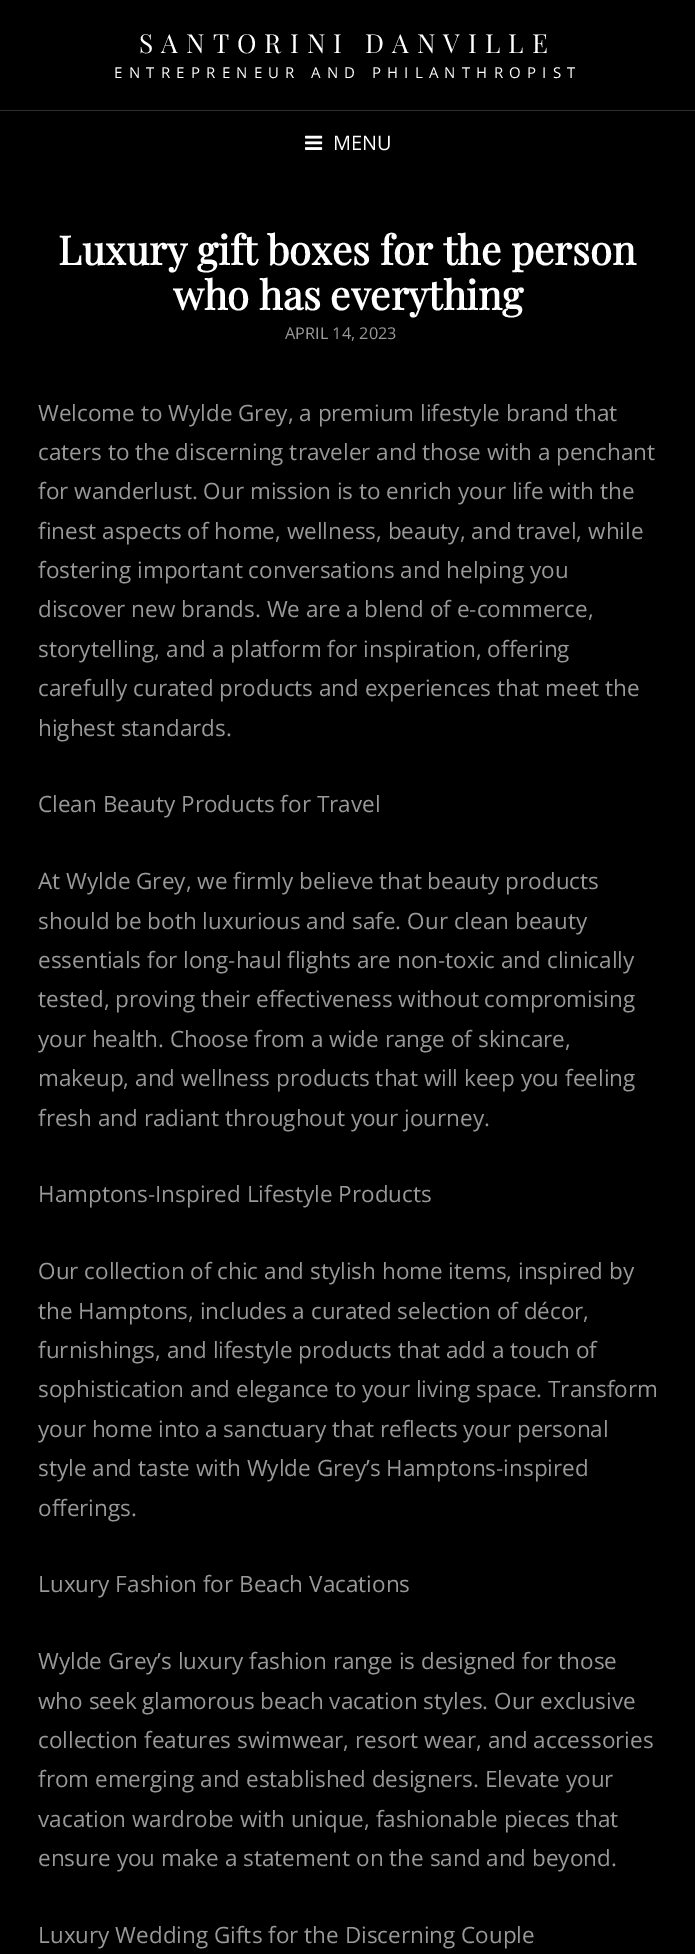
%!PS
<< /PageSize [695 1954] >> setpagedevice
/picture { 5 dict begin { /h /w /y /x /name } { exch def } forall
  gsave x y translate w h scale
  w h 8 [w 0 0 h 0 0] name (r) file false 3 colorimage grestore end } def
0 1954 translate 1 -1 scale
4 setmiterlimit
0 setgray
0 0 695 1954 rectfill
/PlayfairDisplay-Regular [26.25 0 0 -26.25 0 0] selectfont
1 setgray
139 53 moveto 8.1 0 (SANTORINI DANVILLE) ashow
/OpenSans-Regular [15 0 0 -15 0 0] selectfont
114 78 moveto 6.25 0 (ENTREPRENEUR AND PHILANTHROPIST) ashow
0.184 setgray
0 110 695 1 rectfill
(img1.rgb) 305 135 18 15 picture
/OpenSans-Regular [20 0 0 -20 0 0] selectfont
1 setgray
333 150 moveto (MENU) show
/PlayfairDisplay-Bold [40 0 0 -40 0 0] selectfont
58 265 moveto (Luxury gift boxes for the person) show
173 310 moveto (who has everything) show
/OpenSans-Regular [16.25 0 0 -16.25 0 0] selectfont
0.6 setgray
285 339 moveto (APRIL 14, 2023) show
/OpenSans-Regular [22.5 0 0 -22.5 0 0] selectfont
38 421 moveto (Welcome to Wylde Grey, a premium lifestyle brand that) show
38 460 moveto (caters to the discerning traveler and those with a penchant) show
38 499 moveto (for wanderlust. Our mission is to enrich your life with the) show
38 539 moveto (finest aspects of home, wellness, beauty, and travel, while) show
38 578 moveto (fostering important conversations and helping you) show
38 617 moveto (discover new brands. We are a blend of e-commerce,) show
38 657 moveto (storytelling, and a platform for inspiration, offering) show
38 696 moveto (carefully curated products and experiences that meet the) show
38 736 moveto (highest standards.) show
38 812 moveto (Clean Beauty Products for Travel) show
38 889 moveto (At Wylde Grey, we firmly believe that beauty products) show
38 929 moveto (should be both luxurious and safe. Our clean beauty) show
38 968 moveto (essentials for long-haul flights are non-toxic and clinically) show
38 1007 moveto (tested, proving their effectiveness without compromising) show
38 1047 moveto (your health. Choose from a wide range of skincare,) show
38 1086 moveto (makeup, and wellness products that will keep you feeling) show
38 1126 moveto (fresh and radiant throughout your journey.) show
38 1202 moveto (Hamptons-Inspired Lifestyle Products) show
38 1279 moveto (Our collection of chic and stylish home items, inspired by) show
38 1319 moveto (the Hamptons, includes a curated selection of décor,) show
38 1358 moveto (furnishings, and lifestyle products that add a touch of) show
38 1397 moveto (sophistication and elegance to your living space. Transform) show
38 1437 moveto (your home into a sanctuary that reflects your personal) show
38 1476 moveto (style and taste with Wylde Grey’s Hamptons-inspired) show
38 1516 moveto (offerings.) show
38 1592 moveto (Luxury Fashion for Beach Vacations) show
38 1669 moveto (Wylde Grey’s luxury fashion range is designed for those) show
38 1709 moveto (who seek glamorous beach vacation styles. Our exclusive) show
38 1748 moveto (collection features swimwear, resort wear, and accessories) show
38 1787 moveto (from emerging and established designers. Elevate your) show
38 1827 moveto (vacation wardrobe with unique, fashionable pieces that) show
38 1866 moveto (ensure you make a statement on the sand and beyond.) show
38 1943 moveto (Luxury Wedding Gifts for the Discerning Couple) show
showpage
